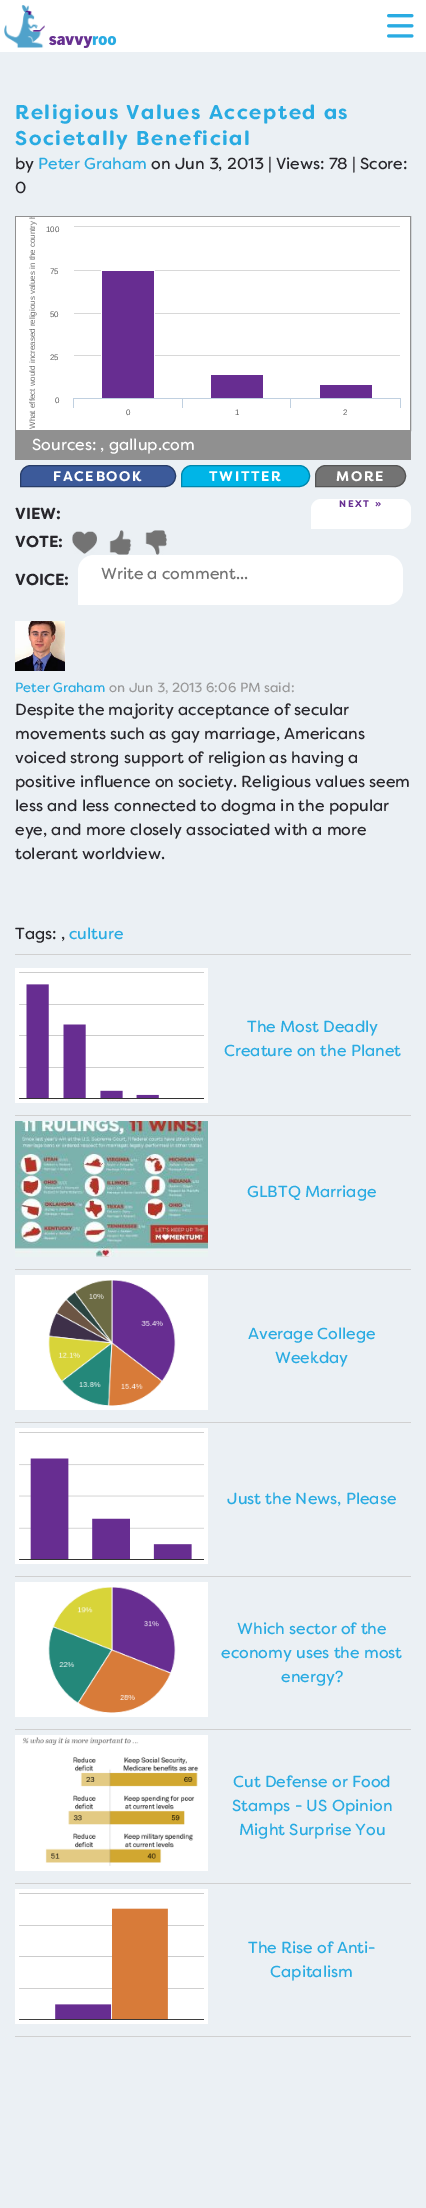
%!PS
<< /PageSize [426 2208] >> setpagedevice
/picture { 5 dict begin { /h /w /y /x /name } { exch def } forall
  gsave x y translate w h scale
  w h 8 [w 0 0 h 0 0] name (r) file false 3 colorimage grestore end } def
0 2208 translate 1 -1 scale
4 setmiterlimit
0.922 0.941 0.957 setrgbcolor
0 0 426 2208 rectfill
1 setgray
0 0 426 52 rectfill
(img1.rgb) 4 5 41 43 picture
(img2.rgb) 49 36 68 12 picture
(img3.rgb) 387 14 27 24 picture
/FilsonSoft-Bold [20 0 0 -20 0 0] selectfont
0.161 0.671 0.886 setrgbcolor
15 119 moveto 1.6 0 (Religious Values Accepted as) ashow
15 145 moveto 1.6 0 (Societally Beneficial) ashow
/FilsonSoft-Regular [16 0 0 -16 0 0] selectfont
0.153 0.149 0.169 setrgbcolor
15 169 moveto (by) show
0.161 0.671 0.886 setrgbcolor
38 169 moveto (Peter Graham) show
0.153 0.149 0.169 setrgbcolor
151 169 moveto (on Jun 3, 2013 | Views: 78 | Score:) show
15 193 moveto (0) show
0.565 setgray
15.5 216.5 395 214 rectstroke
(img4.rgb) 16 217 394 213 picture
gsave
16 217 394 213 rectclip
/LiberationSans-Regular [8 0 0 -8 0 0] selectfont
0.451 setgray
gsave 35 429 translate -90 rotate 0 0 moveto (What effect would increased religious values in the country have?) show grestore
grestore
/LiberationSans-Regular [8 0 0 -8 0 0] selectfont
0.376 setgray
46 232 moveto (100) show
50 274 moveto (75) show
50 317 moveto (50) show
50 360 moveto (25) show
55 403 moveto (0) show
126 415 moveto (0) show
235 415 moveto (1) show
343 415 moveto (2) show
0.565 setgray
15 431 396 29 rectfill
/FilsonSoft-Regular [16 0 0 -16 0 0] selectfont
1 setgray
32 450 moveto (Sources: , gallup.com) show
0.235 0.353 0.604 setrgbcolor
newpath 31 465.5 moveto 165 465.5 lineto 171 465.5 175.5 470 175.5 476 curveto 175.5 482 171 486.5 165 486.5 curveto 20.5 486.5 lineto 20.5 476 lineto 20.5 470 25 465.5 31 465.5 curveto closepath gsave fill grestore
0.157 0.239 0.408 setrgbcolor
stroke
/FilsonSoft-Bold [14 0 0 -14 0 0] selectfont
1 setgray
53 481 moveto 1.6 0 (FACEBOOK) ashow
0 0.71 0.906 setrgbcolor
newpath 192 465.5 moveto 299 465.5 lineto 305 465.5 309.5 470 309.5 476 curveto 309.5 482 305 486.5 299 486.5 curveto 181.5 486.5 lineto 181.5 476 lineto 181.5 470 186 465.5 192 465.5 curveto closepath gsave fill grestore
0 0.525 0.671 setrgbcolor
stroke
1 setgray
209 481 moveto 1.6 0 (TWITTER) ashow
0.451 setgray
newpath 326 465.5 moveto 395 465.5 lineto 401 465.5 405.5 470 405.5 476 curveto 405.5 482 401 486.5 395 486.5 curveto 315.5 486.5 lineto 315.5 476 lineto 315.5 470 320 465.5 326 465.5 curveto closepath gsave fill grestore
0.333 setgray
stroke
1 setgray
336 481 moveto 1.6 0 (MORE) ashow
newpath 321 499 moveto 401 499 lineto 406.5 499 411 503.5 411 509 curveto 411 519 lineto 411 524.5 406.5 529 401 529 curveto 311 529 lineto 311 509 lineto 311 503.5 315.5 499 321 499 curveto closepath fill
/FilsonSoft-Bold [9.5 0 0 -9.5 0 0] selectfont
0.4 0.176 0.569 setrgbcolor
339 507 moveto 1.6 0 (NEXT ») ashow
/FilsonSoft-Bold [16 0 0 -16 0 0] selectfont
0.153 0.149 0.169 setrgbcolor
15 519 moveto (VIEW:) show
15 547 moveto (VOTE:) show
(img5.rgb) 72 531 25 23 picture
(img6.rgb) 109 530 23 25 picture
(img7.rgb) 145 530 22 25 picture
15 585 moveto (VOICE:) show
1 setgray
newpath 94 555 moveto 387 555 lineto 396 555 403 562 403 571 curveto 403 589 lineto 403 598 396 605 387 605 curveto 78 605 lineto 78 571 lineto 78 562 85 555 94 555 curveto closepath fill
/FilsonSoft-Regular [16 0 0 -16 0 0] selectfont
0.451 setgray
101 579 moveto (Write a comment...) show
(img8.rgb) 15 621 50 50 picture
/FilsonSoft-Regular [13.3 0 0 -13.3 0 0] selectfont
0.161 0.671 0.886 setrgbcolor
15 692 moveto (Peter Graham) show
0.6 setgray
109 692 moveto (on Jun 3, 2013 6:06 PM said:) show
/FilsonSoft-Regular [16 0 0 -16 0 0] selectfont
0.153 0.149 0.169 setrgbcolor
15 715 moveto (Despite the majority acceptance of secular) show
15 739 moveto (movements such as gay marriage, Americans) show
15 763 moveto (voiced strong support of religion as having a) show
15 787 moveto (positive influence on society. Religious values seem) show
15 811 moveto (less and less connected to dogma in the popular) show
15 835 moveto (eye, and more closely associated with a more) show
15 859 moveto (tolerant worldview.) show
15 939 moveto (Tags: ,) show
0.161 0.671 0.886 setrgbcolor
69 939 moveto (culture) show
0.816 setgray
15 954 396 1 rectfill
15 1115 396 1 rectfill
(img9.rgb) 15 968 193 135 picture
0.161 0.671 0.886 setrgbcolor
247 1032 moveto (The Most Deadly) show
224 1056 moveto (Creature on the Planet) show
0.816 setgray
15 1269 396 1 rectfill
(img10.rgb) 15 1121 193 136 picture
0.161 0.671 0.886 setrgbcolor
247 1197 moveto (GLBTQ Marriage) show
0.816 setgray
15 1422 396 1 rectfill
(img11.rgb) 15 1275 193 135 picture
0.161 0.671 0.886 setrgbcolor
248 1339 moveto (Average College) show
275 1363 moveto (Weekday) show
0.816 setgray
15 1576 396 1 rectfill
(img12.rgb) 15 1428 193 136 picture
0.161 0.671 0.886 setrgbcolor
227 1504 moveto (Just the News, Please) show
0.816 setgray
15 1729 396 1 rectfill
(img13.rgb) 15 1582 193 135 picture
0.161 0.671 0.886 setrgbcolor
237 1634 moveto (Which sector of the) show
221 1658 moveto (economy uses the most) show
281 1682 moveto (energy?) show
0.816 setgray
15 1883 396 1 rectfill
(img14.rgb) 15 1735 193 136 picture
0.161 0.671 0.886 setrgbcolor
233 1787 moveto (Cut Defense or Food) show
232 1811 moveto (Stamps - US Opinion) show
239 1835 moveto (Might Surprise You) show
0.816 setgray
15 2036 396 1 rectfill
(img15.rgb) 15 1889 193 135 picture
0.161 0.671 0.886 setrgbcolor
248 1953 moveto (The Rise of Anti-) show
270 1977 moveto (Capitalism) show
showpage
